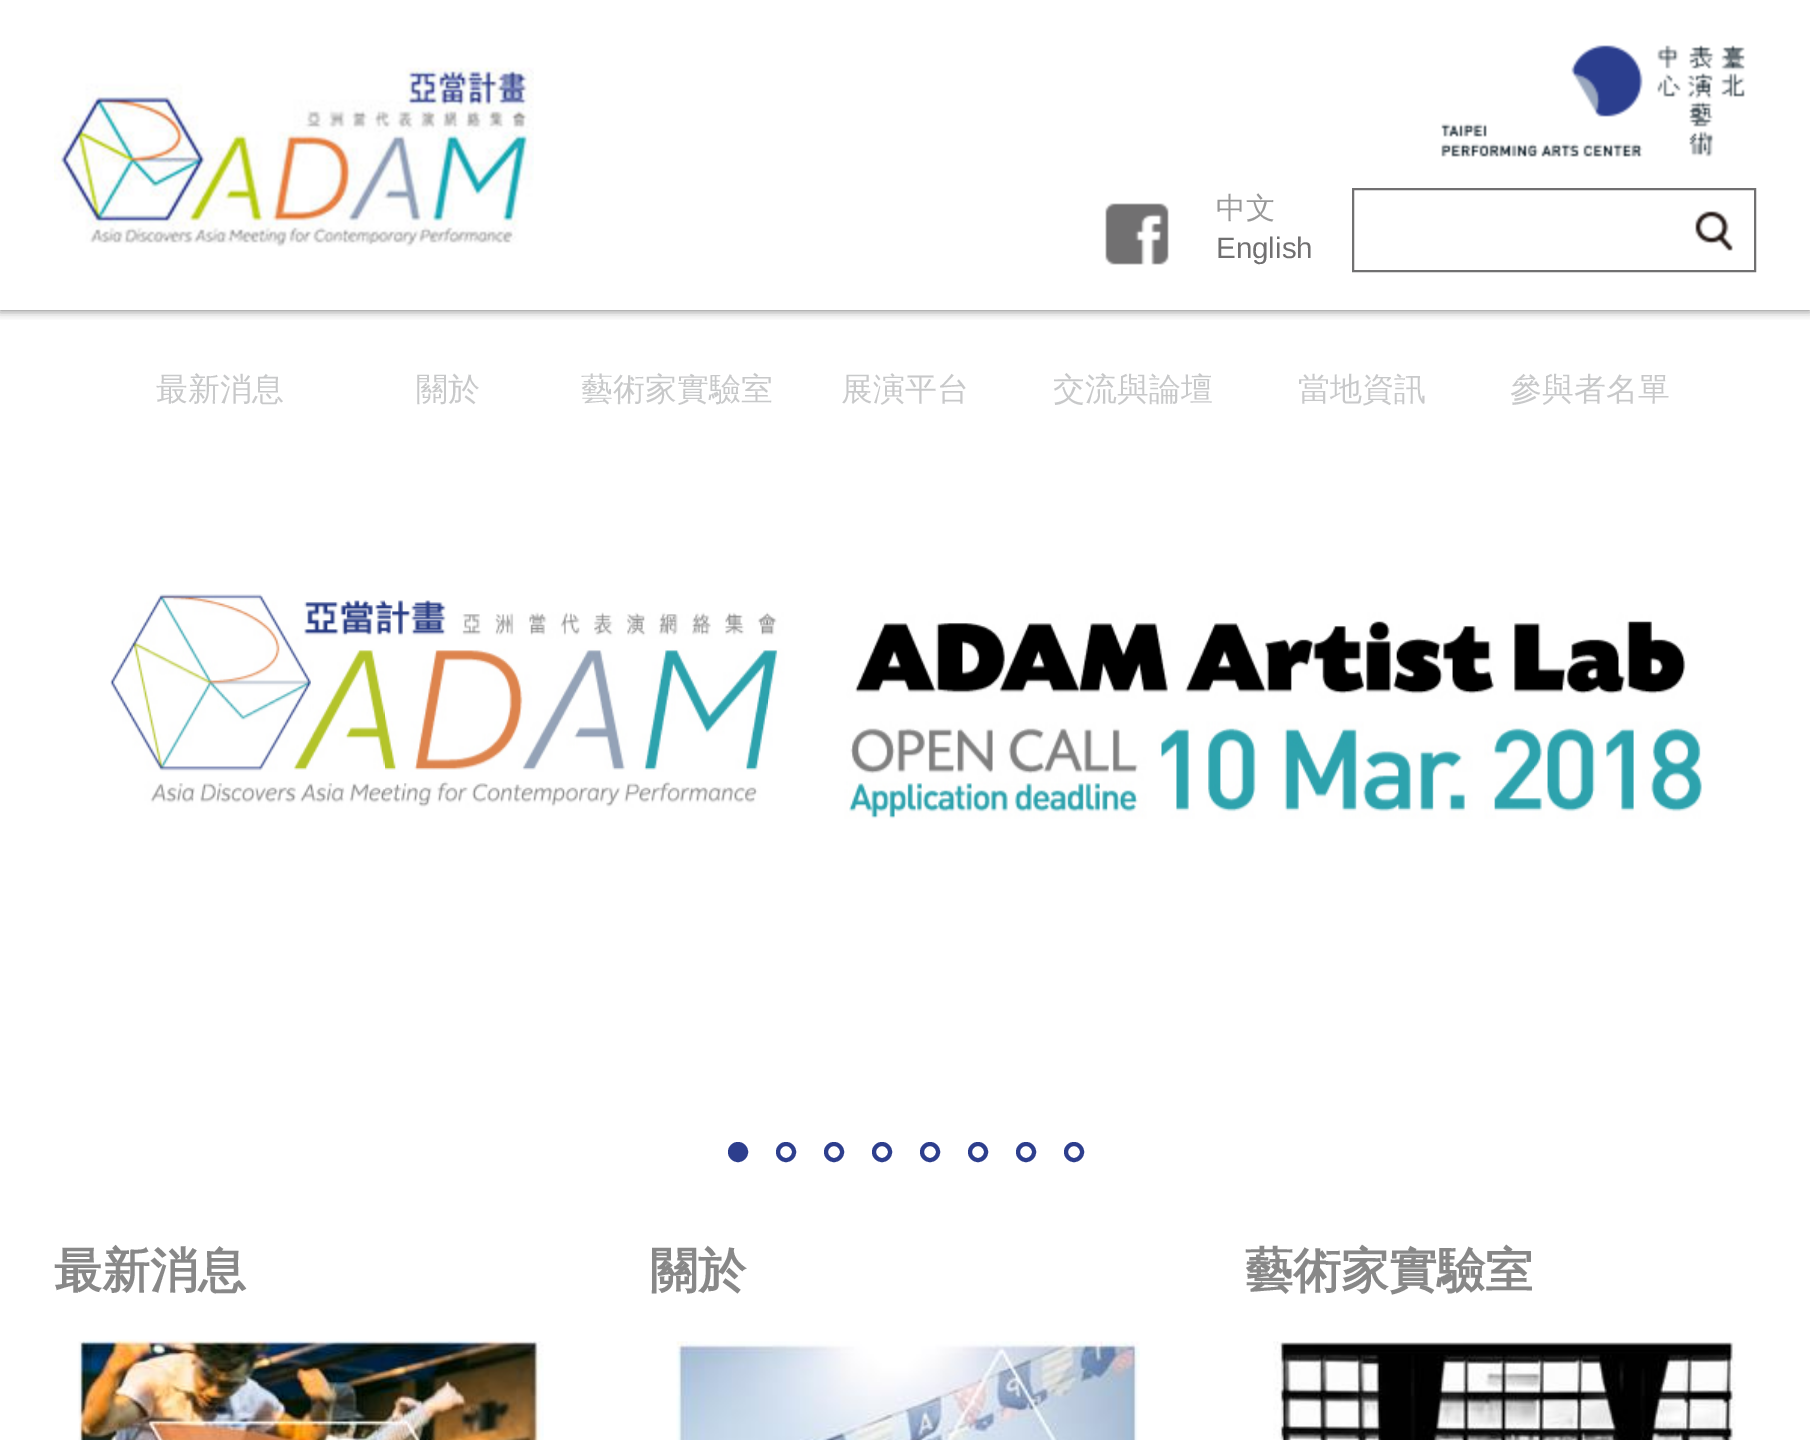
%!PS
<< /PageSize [1810 1440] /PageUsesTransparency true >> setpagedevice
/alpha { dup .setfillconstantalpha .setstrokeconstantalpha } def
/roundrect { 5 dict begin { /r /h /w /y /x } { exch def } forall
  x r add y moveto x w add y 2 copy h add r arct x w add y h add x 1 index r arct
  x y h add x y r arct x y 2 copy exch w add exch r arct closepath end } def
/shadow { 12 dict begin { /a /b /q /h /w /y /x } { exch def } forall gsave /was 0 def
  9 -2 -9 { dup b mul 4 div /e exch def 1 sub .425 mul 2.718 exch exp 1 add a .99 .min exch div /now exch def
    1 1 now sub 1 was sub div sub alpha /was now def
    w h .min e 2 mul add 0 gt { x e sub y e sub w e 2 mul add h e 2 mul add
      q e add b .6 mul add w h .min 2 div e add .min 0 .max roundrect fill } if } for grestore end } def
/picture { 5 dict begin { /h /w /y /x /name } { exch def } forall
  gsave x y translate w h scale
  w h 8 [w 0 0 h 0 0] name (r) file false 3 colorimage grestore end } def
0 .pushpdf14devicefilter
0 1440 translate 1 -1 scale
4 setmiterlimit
1 setgray
0 0 1810 1440 rectfill
gsave
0 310 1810 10 rectclip
0.4 setgray
0 0 1810 310 0 5 1 shadow
grestore
(img1.rgb) 54 67 480 180 picture
(img2.rgb) 1441 45 304 112 picture
(img3.rgb) 1105 203 64 62 picture
/WenQuanYiZenHei-Medium [29.5 0 0 -29.5 0 0] selectfont
0.6 setgray
1216 218 moveto (中文) show
/LiberationSans-Regular [29.5 0 0 -29.5 0 0] selectfont
0.443 0.439 0.443 setrgbcolor
1216 258 moveto (English) show
2 setlinewidth
1353 189 402 82 rectstroke
(img4.rgb) 1695 211 38 40 picture
/WenQuanYiZenHei-Medium [32 0 0 -32 0 0] selectfont
0.784 0.788 0.792 setrgbcolor
156 400 moveto (最新消息) show
416 400 moveto (關於) show
581 400 moveto (藝術家實驗室) show
841 400 moveto (展演平台) show
1053 400 moveto (交流與論壇) show
1298 400 moveto (當地資訊) show
1510 400 moveto (參與者名單) show
(img5.rgb) 110 594 1592 225 picture
0.176 0.243 0.553 setrgbcolor
newpath 738 1152 8 0 360 arc closepath gsave fill grestore
4 setlinewidth
stroke
newpath 786 1152 8 0 360 arc closepath stroke
newpath 834 1152 8 0 360 arc closepath stroke
newpath 882 1152 8 0 360 arc closepath stroke
newpath 930 1152 8 0 360 arc closepath stroke
newpath 978 1152 8 0 360 arc closepath stroke
newpath 1026 1152 8 0 360 arc closepath stroke
newpath 1074 1152 8 0 360 arc closepath stroke
/WenQuanYiZenHei-Bold [48 0 0 -48 0 0] selectfont
0.533 setgray
54 1287 moveto (最新消息) show
(img6.rgb) 78 1339 466 101 picture
650 1287 moveto (關於) show
(img7.rgb) 676 1341 464 99 picture
1245 1287 moveto (藝術家實驗室) show
(img8.rgb) 1273 1341 463 99 picture
.poppdf14devicefilter showpage
